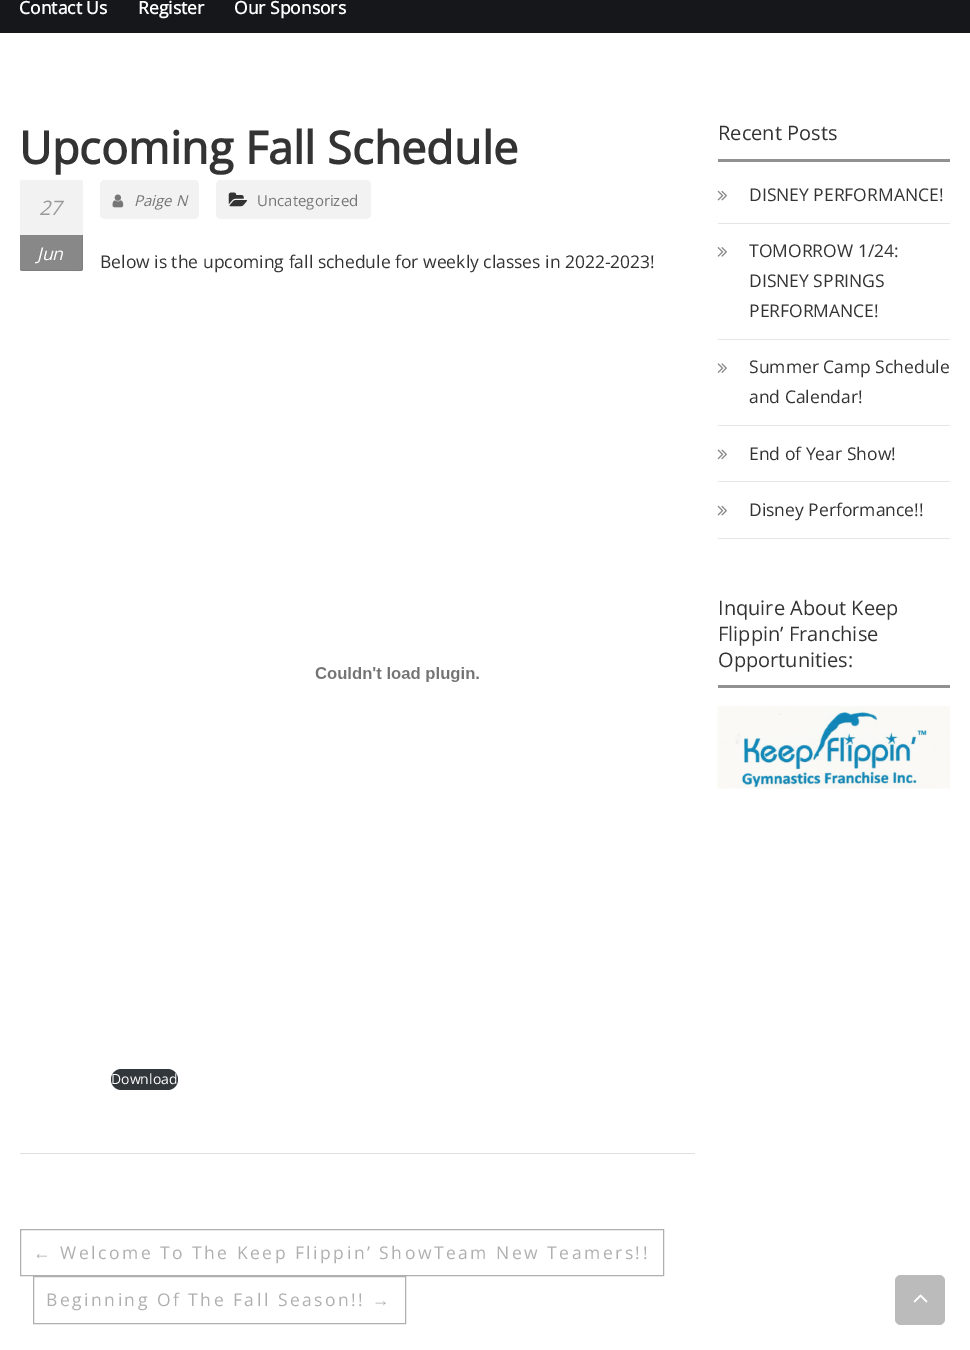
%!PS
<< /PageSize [970 1350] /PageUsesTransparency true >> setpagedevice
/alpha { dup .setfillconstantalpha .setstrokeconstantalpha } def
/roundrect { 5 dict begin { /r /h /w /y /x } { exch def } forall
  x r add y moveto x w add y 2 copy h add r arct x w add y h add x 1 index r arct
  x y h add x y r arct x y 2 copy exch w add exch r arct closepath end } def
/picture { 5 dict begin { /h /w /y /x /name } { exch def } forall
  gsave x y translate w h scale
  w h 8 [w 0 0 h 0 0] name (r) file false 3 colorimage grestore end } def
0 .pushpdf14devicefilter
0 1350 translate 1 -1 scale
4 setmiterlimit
1 setgray
0 0 970 1350 rectfill
0.086 0.09 0.106 setrgbcolor
0 0 970 33 rectfill
/OpenSans-Bold [17.5 0 0 -17.5 0 0] selectfont
1 setgray
19 14 moveto (Contact Us) show
138 14 moveto (Register) show
234 14 moveto (Our Sponsors) show
0.875 setgray
20 1153 675 1 rectfill
/OpenSans-Bold [45 0 0 -45 0 0] selectfont
0.2 setgray
19 164 moveto (Upcoming Fall Schedule) show
0.949 setgray
newpath 22.5 180 moveto 80.5 180 lineto 82 180 83 181 83 182.5 curveto 83 235 lineto 20 235 lineto 20 182.5 lineto 20 181 21 180 22.5 180 curveto closepath fill
/OpenSans-Italic [20 0 0 -20 0 0] selectfont
0.6 setgray
39 215 moveto (27) show
0.533 setgray
newpath 20 235 moveto 83 235 lineto 83 268.5 lineto 83 270 82 271 80.5 271 curveto 22.5 271 lineto 21 271 20 270 20 268.5 curveto closepath fill
0.07 alpha
0 setgray
newpath 20 268 moveto 20 270 21 271 22 271 curveto 71 271 lineto 83 271 83 273 83 263 curveto 83 235 lineto 82 235 lineto 82 268 lineto 82 269 81 270 80 270 curveto 22 270 lineto 21 270 20 269 20 268 curveto closepath fill
/OpenSans-Italic [17.5 0 0 -17.5 0 0] selectfont
1 alpha
1 setgray
37 260 moveto (Jun) show
0.949 setgray
100 180 99 39 5 roundrect fill
(img1.rgb) 112 194 12 14 picture
/OpenSans-Italic [15 0 0 -15 0 0] selectfont
0.467 setgray
134 206 moveto (Paige N) show
0.949 setgray
216 180 155 39 5 roundrect fill
(img2.rgb) 228 192 20 15 picture
/OpenSans-Regular [15 0 0 -15 0 0] selectfont
0.467 setgray
257 206 moveto (Uncategorized) show
/OpenSans-Regular [17.5 0 0 -17.5 0 0] selectfont
0.2 setgray
100 268 moveto (Below is the upcoming fall schedule for weekly classes in 2022-2023!) show
(img3.rgb) 315 667 164 15 picture
0.196 0.216 0.235 setrgbcolor
111 1069 67 21 10.5 roundrect fill
/OpenSans-Regular [14 0 0 -14 0 0] selectfont
1 setgray
111 1084 moveto (Download) show
0.686 setgray
20.5 1229.5 643 46 rectstroke
/LiberationSans-Regular [17.5 0 0 -17.5 0 0] selectfont
33 1259 moveto 2.5 0 (←) ashow
/OpenSans-Regular [17.5 0 0 -17.5 0 0] selectfont
60 1259 moveto 2.5 0 (Welcome To The Keep Flippin’ ShowTeam New Teamers!!) ashow
33.5 1276.5 372 47 rectstroke
46 1306 moveto 2.5 0 (Beginning Of The Fall Season!!) ashow
/LiberationSans-Regular [17.5 0 0 -17.5 0 0] selectfont
372 1306 moveto 2.5 0 (→) ashow
0.569 setgray
718 159 232 3 rectfill
/OpenSans-Regular [20 0 0 -20 0 0] selectfont
0.2 setgray
718 140 moveto (Recent Posts) show
0.902 setgray
718 223 232 1 rectfill
(img4.rgb) 717 190 10 11 picture
/OpenSans-Regular [17.5 0 0 -17.5 0 0] selectfont
0.2 setgray
749 201 moveto (DISNEY PERFORMANCE!) show
0.902 setgray
718 339 232 1 rectfill
(img5.rgb) 717 247 10 10 picture
0.2 setgray
749 257 moveto (TOMORROW 1/24:) show
749 287 moveto (DISNEY SPRINGS) show
749 317 moveto (PERFORMANCE!) show
0.902 setgray
718 425 232 1 rectfill
(img6.rgb) 717 363 10 10 picture
0.2 setgray
749 373 moveto (Summer Camp Schedule) show
749 403 moveto (and Calendar!) show
0.902 setgray
718 481 232 1 rectfill
(img7.rgb) 717 449 10 11 picture
0.2 setgray
749 460 moveto (End of Year Show!) show
0.902 setgray
718 538 232 1 rectfill
(img4.rgb) 717 505 10 11 picture
0.2 setgray
749 516 moveto (Disney Performance!!) show
0.569 setgray
718 685 232 3 rectfill
/OpenSans-Regular [20 0 0 -20 0 0] selectfont
0.2 setgray
718 615 moveto (Inquire About Keep) show
718 641 moveto (Flippin’ Franchise) show
718 667 moveto (Opportunities:) show
(img8.rgb) 717 706 233 83 picture
0.733 setgray
895 1275 50 50 6 roundrect fill
(img9.rgb) 913 1294 15 9 picture
.poppdf14devicefilter showpage
